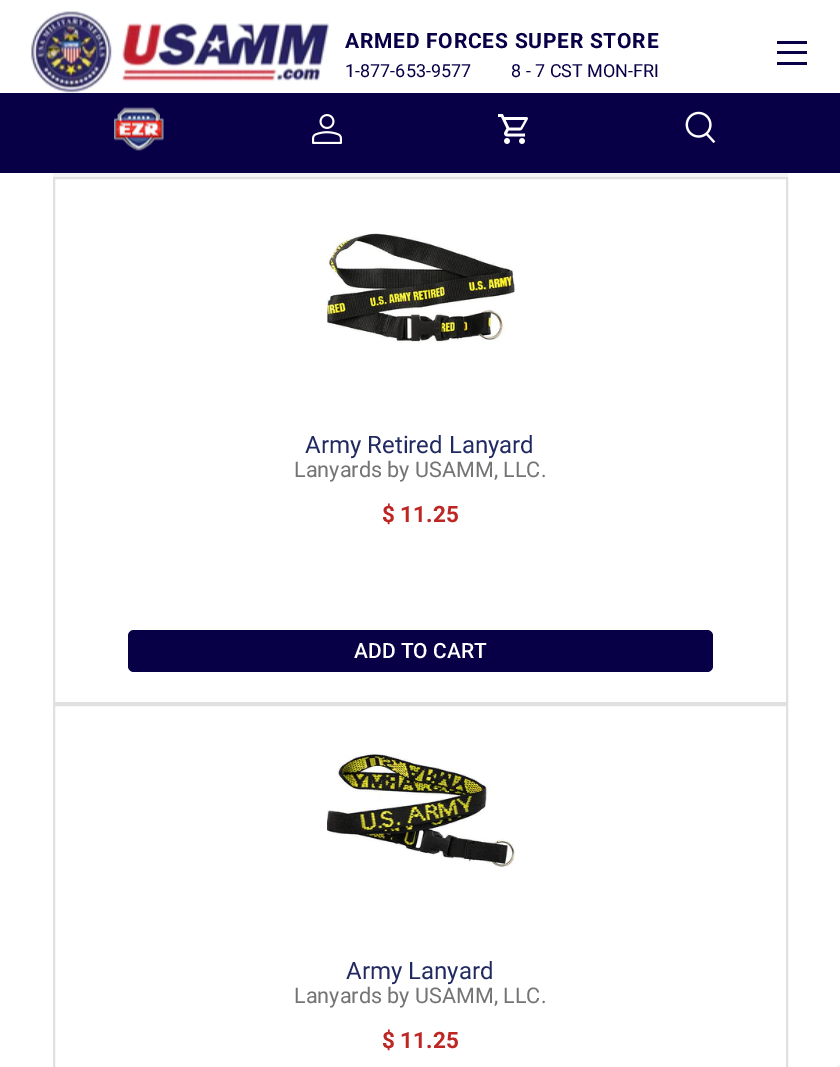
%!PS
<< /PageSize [840 1067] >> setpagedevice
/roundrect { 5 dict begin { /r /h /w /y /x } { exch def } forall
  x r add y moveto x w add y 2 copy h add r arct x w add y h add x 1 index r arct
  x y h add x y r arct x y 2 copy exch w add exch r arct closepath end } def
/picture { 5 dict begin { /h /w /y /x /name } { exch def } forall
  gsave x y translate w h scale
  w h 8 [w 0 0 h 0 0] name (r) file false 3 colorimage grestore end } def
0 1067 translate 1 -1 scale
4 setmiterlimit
1 setgray
0 0 840 1067 rectfill
(img1.rgb) 30 11 300 82 picture
/Roboto-Bold [21 0 0 -21 0 0] selectfont
0.031 0 0.278 setrgbcolor
345 48 moveto 0.75 0 (ARMED FORCES SUPER STORE) ashow
/Roboto-Regular [18 0 0 -18 0 0] selectfont
345 77 moveto (1-877-653-9577) show
511 77 moveto (8 - 7 CST MON-FRI) show
777 41 30 3 rectfill
777 62 30 3 rectfill
777 51 30 3 rectfill
0 93 840 80 rectfill
(img2.rgb) 114 107 50 44 picture
(img3.rgb) 312 114 30 30 picture
(img4.rgb) 498 114 30 30 picture
(img5.rgb) 685 111 31 32 picture
0.957 setgray
53 173 735 4 rectfill
0.878 setgray
2 setlinewidth
54 178 733 525 rectstroke
(img6.rgb) 327 233 188 111 picture
/Roboto-Regular [24 0 0 -24 0 0] selectfont
0.125 0.165 0.38 setrgbcolor
305 453 moveto (Army Retired Lanyard) show
/Roboto-Regular [21.6 0 0 -21.6 0 0] selectfont
0.455 setgray
294 477 moveto (Lanyards by USAMM, LLC.) show
/Roboto-Bold [22.5 0 0 -22.5 0 0] selectfont
0.745 0.149 0.141 setrgbcolor
382 522 moveto ($ 11.25) show
0.031 0 0.278 setrgbcolor
128 630 585 42 6 roundrect fill
/Roboto-Medium [21 0 0 -21 0 0] selectfont
1 setgray
354 658 moveto (ADD TO CART) show
0.878 setgray
54 705 733 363 rectstroke
(img7.rgb) 327 753 188 115 picture
/Roboto-Regular [24 0 0 -24 0 0] selectfont
0.125 0.165 0.38 setrgbcolor
346 979 moveto (Army Lanyard) show
/Roboto-Regular [21.6 0 0 -21.6 0 0] selectfont
0.455 setgray
294 1003 moveto (Lanyards by USAMM, LLC.) show
/Roboto-Bold [22.5 0 0 -22.5 0 0] selectfont
0.745 0.149 0.141 setrgbcolor
382 1048 moveto ($ 11.25) show
0.961 setgray
837 1065 3 2 rectfill
showpage
